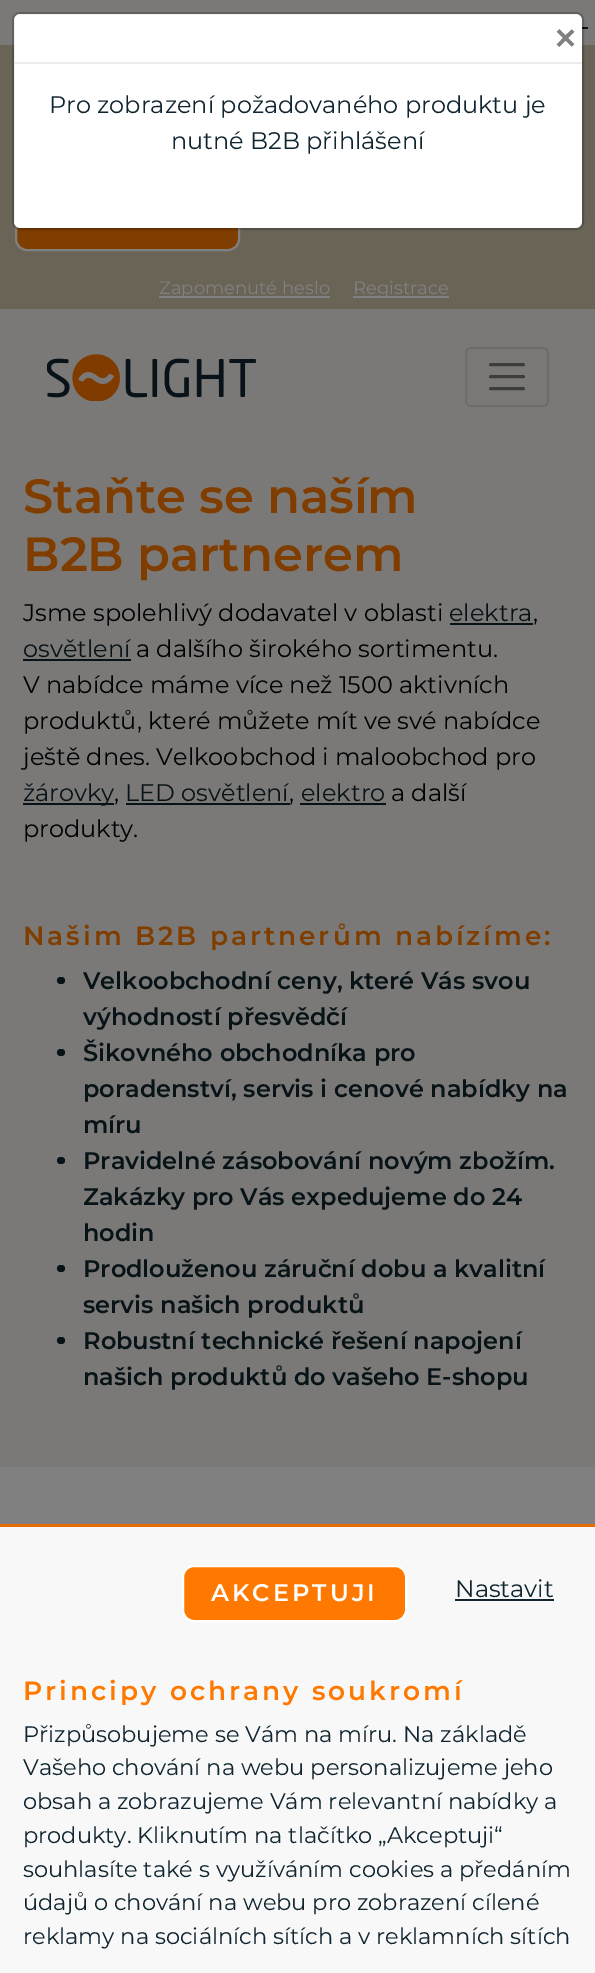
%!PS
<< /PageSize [595 1973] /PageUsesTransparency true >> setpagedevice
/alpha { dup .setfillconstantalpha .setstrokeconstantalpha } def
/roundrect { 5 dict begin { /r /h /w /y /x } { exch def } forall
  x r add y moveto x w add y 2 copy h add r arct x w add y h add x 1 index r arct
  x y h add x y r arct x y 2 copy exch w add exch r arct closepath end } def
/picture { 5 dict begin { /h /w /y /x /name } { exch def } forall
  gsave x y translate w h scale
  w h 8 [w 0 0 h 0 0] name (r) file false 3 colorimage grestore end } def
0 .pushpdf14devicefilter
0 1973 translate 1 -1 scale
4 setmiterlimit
0.478 0.475 0.467 setrgbcolor
0 0 595 1973 rectfill
0.416 0.392 0.341 setrgbcolor
0 45 595 264 rectfill
0.502 0.239 0 setrgbcolor
16 202 223 48 11 roundrect gsave fill grestore
0.502 setgray
2 setlinewidth
stroke
1 setgray
14 14 568 214 6 roundrect fill
0.031 0.075 0.094 setrgbcolor
582 27 6 2 rectfill
0.2 alpha
0 setgray
13 13 570 216 7 roundrect stroke
1 alpha
0.914 0.925 0.937 setrgbcolor
14 62 568 2 rectfill
/LiberationSans-Bold [36 0 0 -36 0 0] selectfont
0.502 setgray
555 50 moveto (×) show
/Montserrat-Regular [24 0 0 -24 0 0] selectfont
0.063 0.145 0.184 setrgbcolor
49 113 moveto (Pro zobrazení požadovaného produktu je) show
171 149 moveto (nutné B2B přihlášení) show
0.502 setgray
159 296 171 2 rectfill
/Montserrat-Regular [18 0 0 -18 0 0] selectfont
159 294 moveto (Zapomenuté heslo) show
353 296 96 2 rectfill
353 294 moveto (Registrace) show
(img1.rgb) 47 354 209 47 picture
0.431 0.427 0.42 setrgbcolor
466 348 82 58 5 roundrect stroke
0.239 0.239 0.235 setrgbcolor
3 setlinewidth
1 setlinecap
newpath 490.5 364.5 moveto 523.5 364.5 lineto 490.5 376.5 moveto 523.5 376.5 lineto 490.5 388.5 moveto 523.5 388.5 lineto stroke
0.973 setgray
0 1527 595 446 rectfill
0.902 0.427 0 setrgbcolor
0 1524 595 3 rectfill
1 0.475 0 setrgbcolor
183 1566 223 55 11 roundrect gsave fill grestore
1 setgray
2 setlinewidth
0 setlinecap
stroke
/Montserrat-SemiBold [24 0 0 -24 0 0] selectfont
211 1601 moveto 3 0 (AKCEPTUJI) ashow
/Montserrat-Regular [24 0 0 -24 0 0] selectfont
0.063 0.145 0.184 setrgbcolor
455 1597 moveto (Nastavit) show
455 1599 99 2 rectfill
/Montserrat-SemiBold [26.4 0 0 -26.4 0 0] selectfont
1 0.475 0 setrgbcolor
23 1700 moveto 3 0 (Principy ochrany soukromí) ashow
/Montserrat-Regular [22.5 0 0 -22.5 0 0] selectfont
0.063 0.145 0.184 setrgbcolor
23 1742 moveto (Přizpůsobujeme se Vám na míru. Na základě) show
23 1775 moveto (Vašeho chování na webu personalizujeme jeho) show
23 1809 moveto (obsah a zobrazujeme Vám relevantní nabídky a) show
23 1843 moveto (produkty. Kliknutím na tlačítko „Akceptuji“) show
23 1877 moveto (souhlasíte také s využíváním cookies a předáním) show
23 1910 moveto (údajů o chování na webu pro zobrazení cílené) show
23 1944 moveto (reklamy na sociálních sítích a v reklamních sítích) show
/Montserrat-SemiBold [48 0 0 -48 0 0] selectfont
0.502 0.239 0 setrgbcolor
23 513 moveto (Staňte se naším) show
23 571 moveto (B2B partnerem) show
/Montserrat-Regular [24 0 0 -24 0 0] selectfont
0 setgray
23 621 moveto (Jsme spolehlivý dodavatel v oblasti) show
0.031 0.075 0.094 setrgbcolor
449 621 moveto (elektra) show
450 623 83 2 rectfill
0 setgray
533 621 moveto (,) show
0.031 0.075 0.094 setrgbcolor
23 657 moveto (osvětlení) show
23 659 108 2 rectfill
0 setgray
136 657 moveto (a dalšího širokého sortimentu.) show
23 693 moveto (V nabídce máme více než 1500 aktivních) show
23 729 moveto (produktů, které můžete mít ve své nabídce) show
23 765 moveto (ještě dnes. Velkoobchod i maloobchod pro) show
0.031 0.075 0.094 setrgbcolor
23 803 91 2 rectfill
23 801 moveto (žárovky) show
0 setgray
114 801 moveto (,) show
289 801 moveto (,) show
0.031 0.075 0.094 setrgbcolor
125 801 moveto (LED osvětlení) show
126 803 164 2 rectfill
301 801 moveto (elektro) show
300 803 86 2 rectfill
0 setgray
391 801 moveto (a další) show
23 837 moveto (produkty.) show
/Montserrat-SemiBold [26.4 0 0 -26.4 0 0] selectfont
0.502 0.239 0 setrgbcolor
23 945 moveto 3 0 (Našim B2B partnerům nabízíme:) ashow
0.031 0.075 0.094 setrgbcolor
57 977 8 7 3.5 roundrect fill
/Montserrat-SemiBold [24 0 0 -24 0 0] selectfont
83 989 moveto (Velkoobchodní ceny, které Vás svou) show
83 1025 moveto (výhodností přesvědčí) show
57 1049 8 7 3.5 roundrect fill
83 1061 moveto (Šikovného obchodníka pro) show
83 1097 moveto (poradenství, servis i cenové nabídky na) show
83 1133 moveto (míru) show
57 1157 8 7 3.5 roundrect fill
83 1169 moveto (Pravidelné zásobování novým zbožím.) show
83 1205 moveto (Zakázky pro Vás expedujeme do 24) show
83 1241 moveto (hodin) show
57 1265 8 7 3.5 roundrect fill
83 1277 moveto (Prodlouženou záruční dobu a kvalitní) show
83 1313 moveto (servis našich produktů) show
57 1337 8 7 3.5 roundrect fill
83 1349 moveto (Robustní technické řešení napojení) show
83 1385 moveto (našich produktů do vašeho E-shopu) show
0.502 setgray
0 1467 595 57 rectfill
.poppdf14devicefilter showpage
